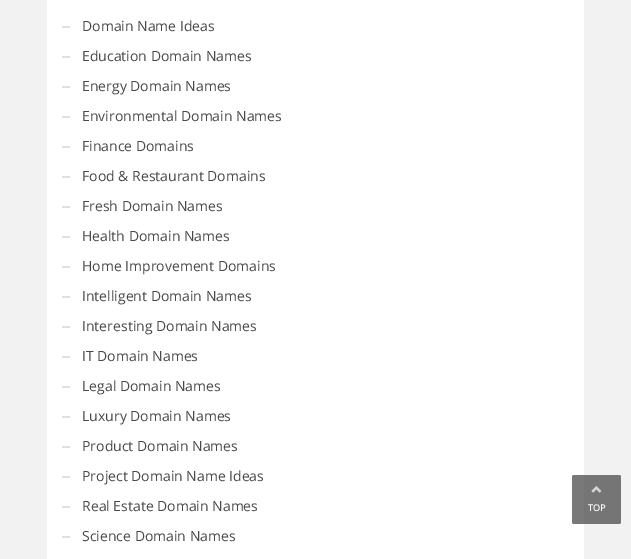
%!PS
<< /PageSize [631 559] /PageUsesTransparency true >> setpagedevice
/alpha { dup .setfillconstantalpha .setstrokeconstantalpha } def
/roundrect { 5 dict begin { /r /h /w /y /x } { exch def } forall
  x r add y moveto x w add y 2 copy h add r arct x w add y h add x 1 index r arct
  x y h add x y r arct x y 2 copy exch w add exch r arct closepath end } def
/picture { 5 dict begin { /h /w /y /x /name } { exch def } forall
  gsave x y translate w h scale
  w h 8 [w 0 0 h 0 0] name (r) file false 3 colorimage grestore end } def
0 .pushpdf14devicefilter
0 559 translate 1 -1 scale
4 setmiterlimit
0.949 setgray
0 0 631 559 rectfill
1 setgray
47 0 537 559 rectfill
0.882 setgray
62 26 8 2 rectfill
/OpenSans-Regular [14 0 0 -14 0 0] selectfont
0.282 setgray
82 31 moveto (Domain Name Ideas) show
0.882 setgray
62 56 8 2 rectfill
0.282 setgray
82 61 moveto (Education Domain Names) show
0.882 setgray
62 86 8 2 rectfill
0.282 setgray
82 91 moveto (Energy Domain Names) show
0.882 setgray
62 116 8 2 rectfill
0.282 setgray
82 121 moveto (Environmental Domain Names) show
0.882 setgray
62 146 8 2 rectfill
0.282 setgray
82 151 moveto (Finance Domains) show
0.882 setgray
62 176 8 2 rectfill
0.282 setgray
82 181 moveto (Food & Restaurant Domains) show
0.882 setgray
62 206 8 2 rectfill
0.282 setgray
82 211 moveto (Fresh Domain Names) show
0.882 setgray
62 236 8 2 rectfill
0.282 setgray
82 241 moveto (Health Domain Names) show
0.882 setgray
62 266 8 2 rectfill
0.282 setgray
82 271 moveto (Home Improvement Domains) show
0.882 setgray
62 296 8 2 rectfill
0.282 setgray
82 301 moveto (Intelligent Domain Names) show
0.882 setgray
62 326 8 2 rectfill
0.282 setgray
82 331 moveto (Interesting Domain Names) show
0.882 setgray
62 356 8 2 rectfill
0.282 setgray
82 361 moveto (IT Domain Names) show
0.882 setgray
62 386 8 2 rectfill
0.282 setgray
82 391 moveto (Legal Domain Names) show
0.882 setgray
62 416 8 2 rectfill
0.282 setgray
82 421 moveto (Luxury Domain Names) show
0.882 setgray
62 446 8 2 rectfill
0.282 setgray
82 451 moveto (Product Domain Names) show
0.882 setgray
62 476 8 2 rectfill
0.282 setgray
82 481 moveto (Project Domain Name Ideas) show
0.882 setgray
62 506 8 2 rectfill
0.282 setgray
82 511 moveto (Real Estate Domain Names) show
0.882 setgray
62 536 8 2 rectfill
0.282 setgray
82 541 moveto (Science Domain Names) show
0.7 alpha
0.251 setgray
572 475 49 49 2 roundrect fill
1 alpha
(img1.rgb) 591 486 11 7 picture
/OpenSans-Bold [9 0 0 -9 0 0] selectfont
0.984 setgray
588 511 moveto (TOP) show
.poppdf14devicefilter showpage
